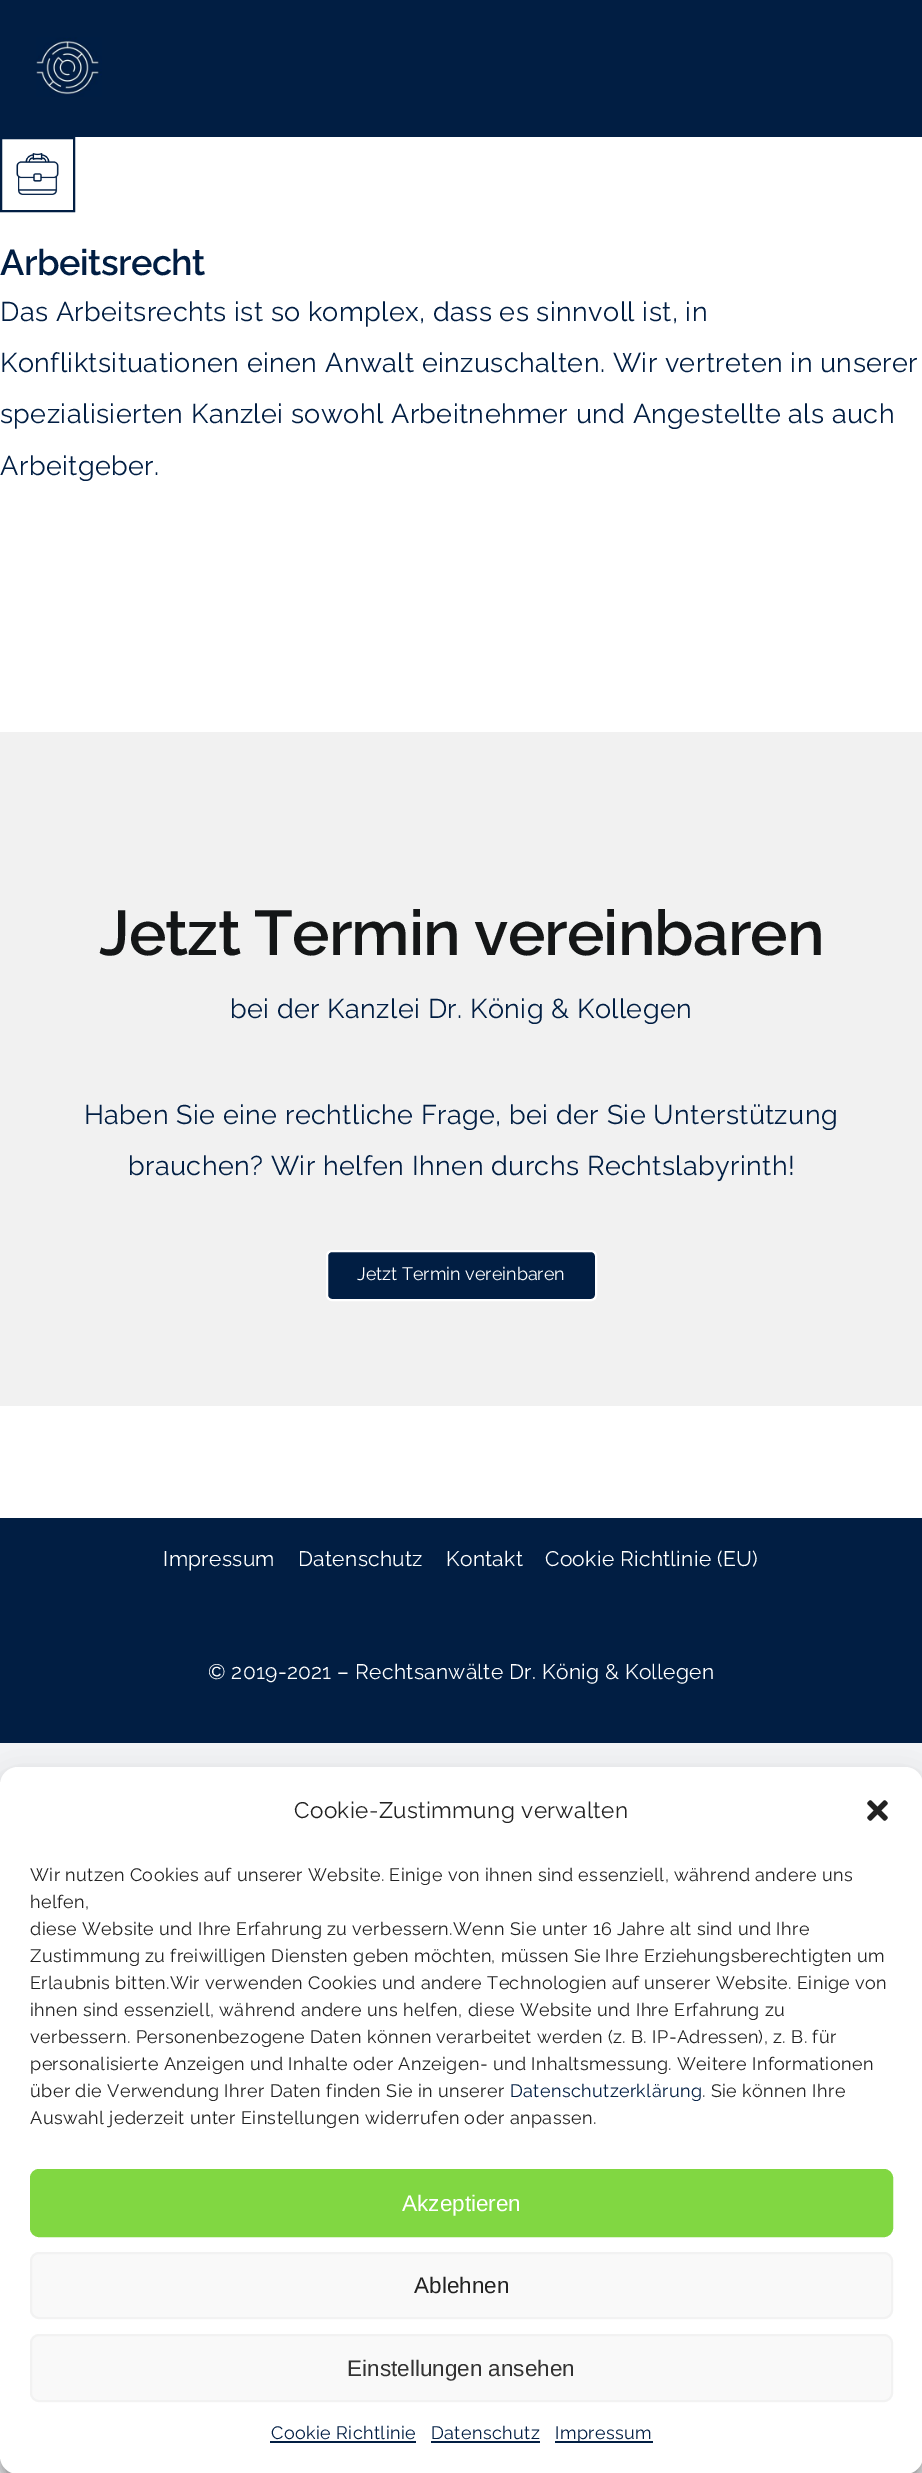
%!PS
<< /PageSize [922 2473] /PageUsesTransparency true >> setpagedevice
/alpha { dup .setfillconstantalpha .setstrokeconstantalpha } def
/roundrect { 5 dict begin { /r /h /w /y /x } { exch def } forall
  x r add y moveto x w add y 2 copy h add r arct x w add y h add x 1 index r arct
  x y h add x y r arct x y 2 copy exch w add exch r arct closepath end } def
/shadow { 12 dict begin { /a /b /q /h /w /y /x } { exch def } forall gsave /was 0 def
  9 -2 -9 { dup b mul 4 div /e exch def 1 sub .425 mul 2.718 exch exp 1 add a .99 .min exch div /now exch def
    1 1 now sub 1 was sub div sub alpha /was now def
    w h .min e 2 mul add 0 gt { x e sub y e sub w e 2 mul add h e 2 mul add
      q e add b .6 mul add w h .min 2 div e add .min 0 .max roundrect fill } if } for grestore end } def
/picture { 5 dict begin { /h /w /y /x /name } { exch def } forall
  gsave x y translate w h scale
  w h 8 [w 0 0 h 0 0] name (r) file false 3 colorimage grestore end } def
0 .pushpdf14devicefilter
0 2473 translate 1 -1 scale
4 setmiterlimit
0.949 0.953 0.961 setrgbcolor
0 0 922 2473 rectfill
1 setgray
0 137 922 1381 rectfill
0.004 0.118 0.263 setrgbcolor
0 0 922 137 rectfill
(img1.rgb) 36 37 66 60 picture
2 setlinewidth
1 138 73 73 rectstroke
(img2.rgb) 16 153 43 42 picture
/Raleway-SemiBold [36 0 0 -36 0 0] selectfont
0 275 moveto -0.5 0 (Arbeitsrecht) ashow
/Raleway-Regular [27 0 0 -27 0 0] selectfont
0 321 moveto 0.4 0 (Das Arbeitsrechts ist so komplex, dass es sinnvoll ist, in) ashow
0 372 moveto 0.4 0 (Konfliktsituationen einen Anwalt einzuschalten. Wir vertreten in unserer) ashow
0 423 moveto 0.4 0 (spezialisierten Kanzlei sowohl Arbeitnehmer und Angestellte als auch) ashow
0 475 moveto 0.4 0 (Arbeitgeber.) ashow
0.945 setgray
0 732 922 674 rectfill
/Raleway-SemiBold [63 0 0 -63 0 0] selectfont
0.078 0.086 0.09 setrgbcolor
99 955 moveto -0.95 0 (Jetzt Termin vereinbaren) ashow
/Raleway-Regular [27 0 0 -27 0 0] selectfont
0.004 0.118 0.263 setrgbcolor
230 1018 moveto 0.4 0 (bei der Kanzlei Dr. König & Kollegen) ashow
84 1124 moveto 0.4 0 (Haben Sie eine rechtliche Frage, bei der Sie Unterstützung) ashow
128 1175 moveto 0.4 0 (brauchen? Wir helfen Ihnen durchs Rechtslabyrinth!) ashow
327 1251 269 49 5 roundrect gsave fill grestore
1 setgray
stroke
/Raleway-Regular [18 0 0 -18 0 0] selectfont
357 1280 moveto (Jetzt Termin vereinbaren) show
0.004 0.118 0.263 setrgbcolor
0 1518 922 225 rectfill
/Raleway-Regular [21 0 0 -21 0 0] selectfont
1 setgray
163 1566 moveto 0.3 0 (Impressum) ashow
298 1566 moveto 0.3 0 (Datenschutz) ashow
446 1566 moveto 0.3 0 (Kontakt) ashow
545 1566 moveto 0.3 0 (Cookie Richtlinie \(EU\)) ashow
208 1679 moveto 0.3 0 (© 2019-2021 – Rechtsanwälte Dr. König & Kollegen) ashow
0 setgray
0 1776 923 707 18 4.5 0.23 shadow
0 1782 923 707 18 15 0.19 shadow
1 setgray
0 1767 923 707 18 roundrect fill
/Raleway-Regular [22.5 0 0 -22.5 0 0] selectfont
0.133 setgray
294 1818 moveto 0.4 0 (Cookie-Zustimmung verwalten) ashow
(img3.rgb) 867 1800 21 21 picture
/Raleway-Regular [18 0 0 -18 0 0] selectfont
30 1881 moveto 0.4 0 (Wir nutzen Cookies auf unserer Website. Einige von ihnen sind essenziell, während andere uns) ashow
30 1908 moveto 0.4 0 (helfen,) ashow
30 1935 moveto 0.4 0 (diese Website und Ihre Erfahrung zu verbessern.Wenn Sie unter 16 Jahre alt sind und Ihre) ashow
30 1962 moveto 0.4 0 (Zustimmung zu freiwilligen Diensten geben möchten, müssen Sie Ihre Erziehungsberechtigten um) ashow
30 1989 moveto 0.4 0 (Erlaubnis bitten.Wir verwenden Cookies und andere Technologien auf unserer Website. Einige von) ashow
30 2016 moveto 0.4 0 (ihnen sind essenziell, während andere uns helfen, diese Website und Ihre Erfahrung zu) ashow
30 2043 moveto 0.4 0 (verbessern. Personenbezogene Daten können verarbeitet werden \(z. B. IP-Adressen\), z. B. für) ashow
30 2070 moveto 0.4 0 (personalisierte Anzeigen und Inhalte oder Anzeigen- und Inhaltsmessung. Weitere Informationen) ashow
30 2097 moveto 0.4 0 (über die Verwendung Ihrer Daten finden Sie in unserer) ashow
0.004 0.118 0.263 setrgbcolor
510 2097 moveto 0.4 0 (Datenschutzerklärung) ashow
0.133 setgray
702 2097 moveto 0.4 0 (. Sie können Ihre) ashow
30 2124 moveto 0.4 0 (Auswahl jederzeit unter Einstellungen widerrufen oder anpassen.) ashow
0.506 0.843 0.259 setrgbcolor
31 2170 861 66 8 roundrect gsave fill grestore
stroke
/LiberationSans-Regular [22.5 0 0 -22.5 0 0] selectfont
1 setgray
402 2211 moveto (Akzeptieren) show
0.976 setgray
31 2253 861 65 8 roundrect gsave fill grestore
0.949 setgray
stroke
0.133 setgray
414 2293 moveto (Ablehnen) show
0.976 setgray
31 2335 861 66 8 roundrect gsave fill grestore
0.949 setgray
stroke
0.2 setgray
347 2376 moveto (Einstellungen ansehen) show
/Raleway-Regular [18 0 0 -18 0 0] selectfont
0.004 0.118 0.263 setrgbcolor
271 2439 moveto 0.4 0 (Cookie Richtlinie) ashow
0.004 0.118 0.259 setrgbcolor
270 2441 146 2 rectfill
0.004 0.118 0.263 setrgbcolor
431 2439 moveto 0.4 0 (Datenschutz) ashow
0.004 0.118 0.259 setrgbcolor
431 2441 109 2 rectfill
555 2441 98 2 rectfill
0.004 0.118 0.263 setrgbcolor
555 2439 moveto 0.4 0 (Impressum) ashow
.poppdf14devicefilter showpage
